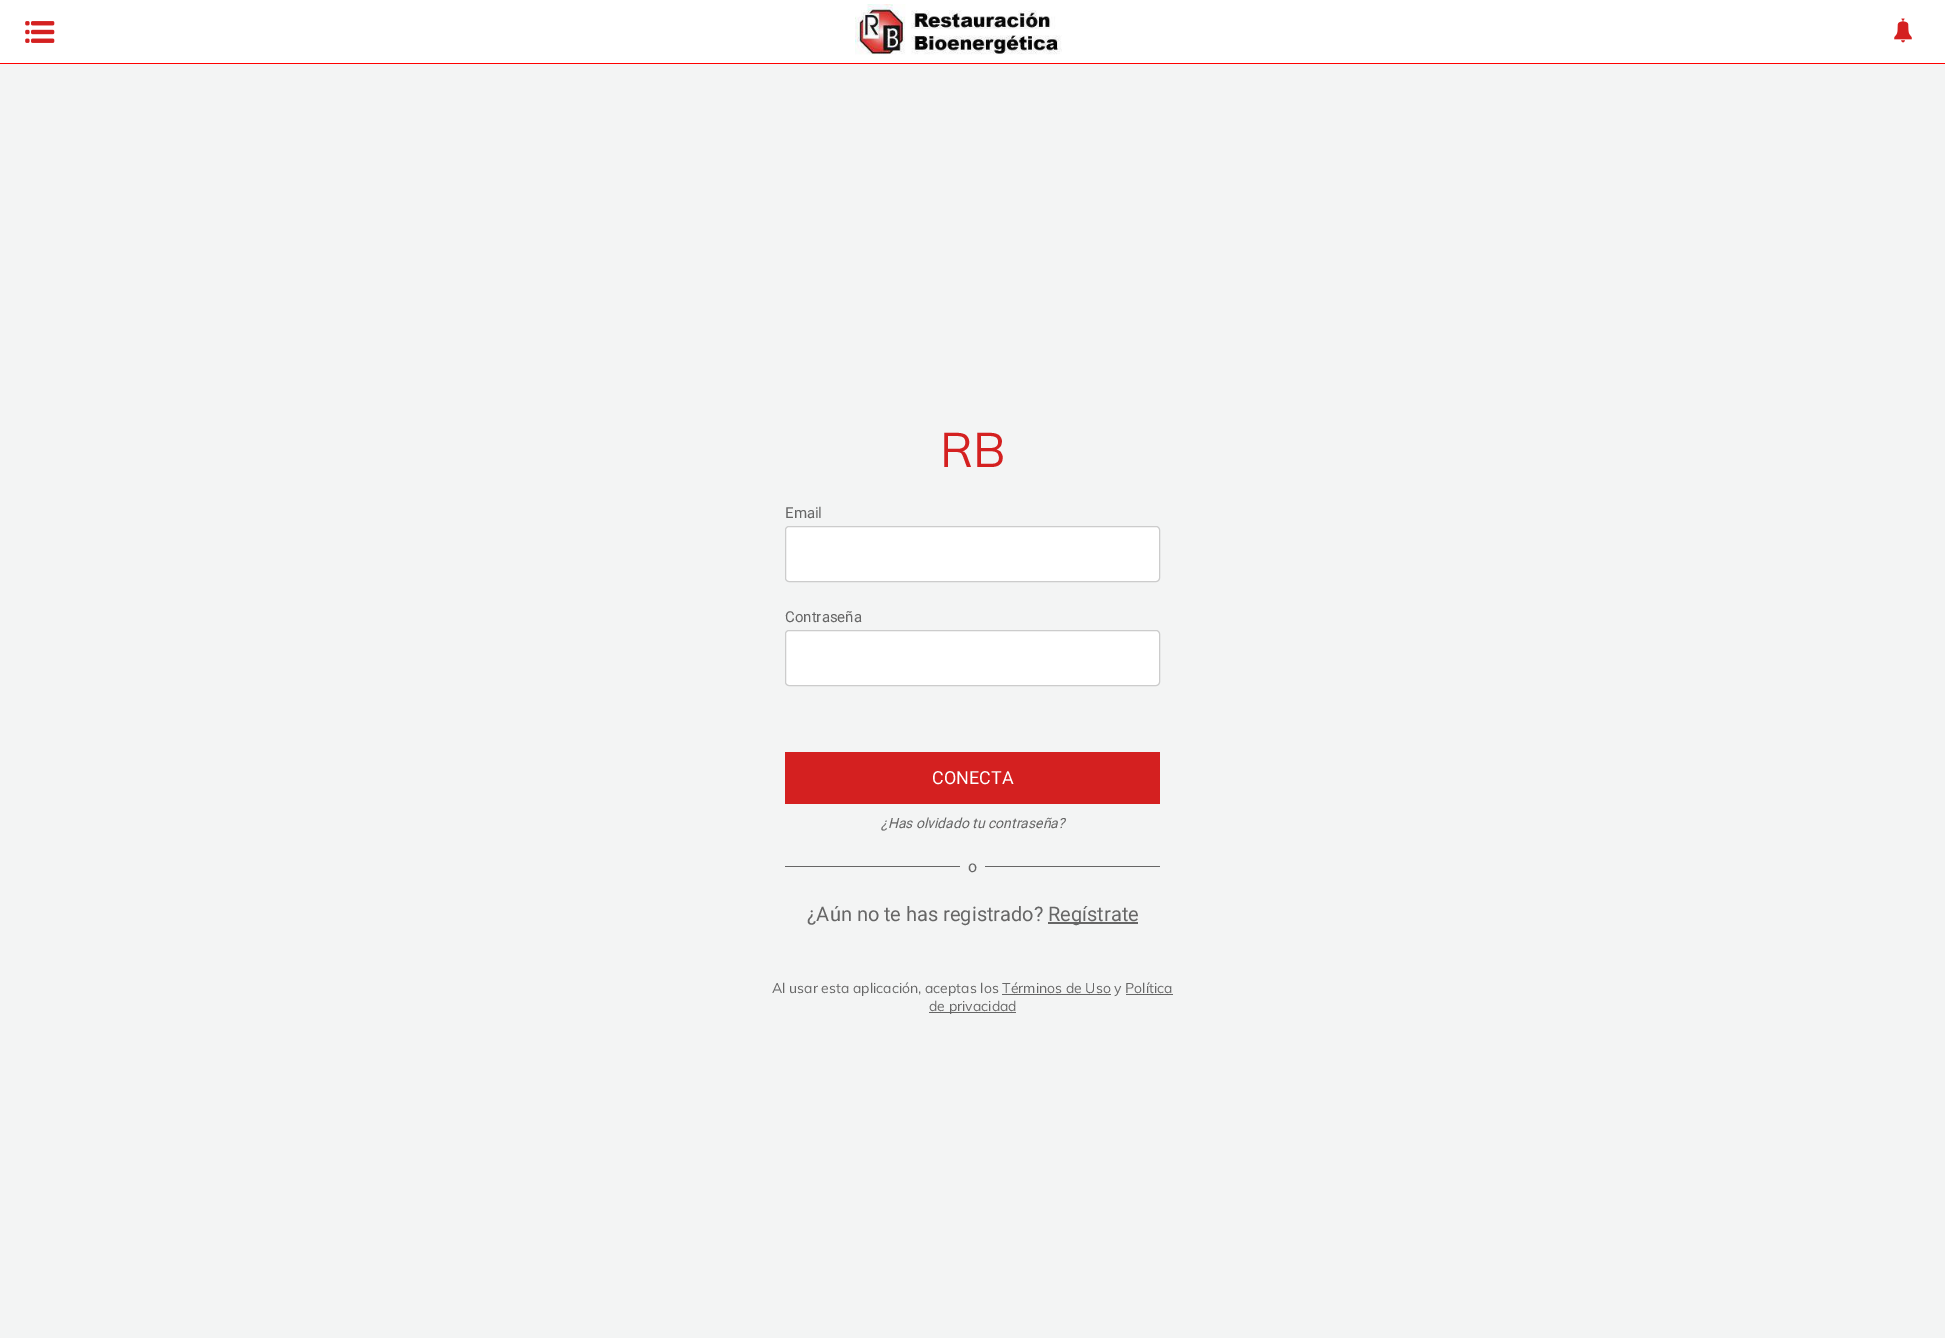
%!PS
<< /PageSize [1945 1338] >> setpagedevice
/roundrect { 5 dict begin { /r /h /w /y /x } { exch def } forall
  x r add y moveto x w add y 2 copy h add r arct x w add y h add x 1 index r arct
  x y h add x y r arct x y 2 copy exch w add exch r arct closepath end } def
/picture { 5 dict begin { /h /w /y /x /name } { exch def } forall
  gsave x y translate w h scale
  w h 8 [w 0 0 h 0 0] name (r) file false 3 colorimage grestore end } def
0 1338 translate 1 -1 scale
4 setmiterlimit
0.953 0.957 0.957 setrgbcolor
0 0 1945 1338 rectfill
1 setgray
0 0 1945 63 rectfill
1 0 0 setrgbcolor
0 63 1945 1 rectfill
(img1.rgb) 25 21 30 22 picture
(img2.rgb) 855 4 207 51 picture
(img3.rgb) 1894 18 18 25 picture
/Muli-Regular [48 0 0 -48 0 0] selectfont
0.831 0.125 0.125 setrgbcolor
940 467 moveto (RB) show
/Roboto-Regular [15 0 0 -15 0 0] selectfont
0.4 setgray
785 518 moveto (Email) show
1 setgray
785.5 526.5 374 55 3.5 roundrect gsave fill grestore
0.8 setgray
stroke
0.4 setgray
785 622 moveto (Contraseña) show
1 setgray
785.5 630.5 374 55 3.5 roundrect gsave fill grestore
0.8 setgray
stroke
0.831 0.125 0.125 setrgbcolor
785 752 375 52 rectfill
/Roboto-Regular [18 0 0 -18 0 0] selectfont
1 setgray
932 784 moveto (CONECTA) show
/Roboto-Italic [14 0 0 -14 0 0] selectfont
0.4 setgray
881 828 moveto (¿Has olvidado tu contraseña?) show
785 866 175 1 rectfill
/Roboto-Regular [16 0 0 -16 0 0] selectfont
968 872 moveto (o) show
985 866 175 1 rectfill
/Roboto-Regular [20 0 0 -20 0 0] selectfont
807 921 moveto (¿Aún no te has registrado?) show
1048 922 90 2 rectfill
1048 921 moveto (Regístrate) show
/Muli-Regular [14 0 0 -14 0 0] selectfont
772 993 moveto (Al usar esta aplicación, aceptas los Términos de Uso y Política) show
1002 994 109 1 rectfill
929 1012 87 1 rectfill
929 1011 moveto (de privacidad) show
1126 994 47 1 rectfill
showpage
